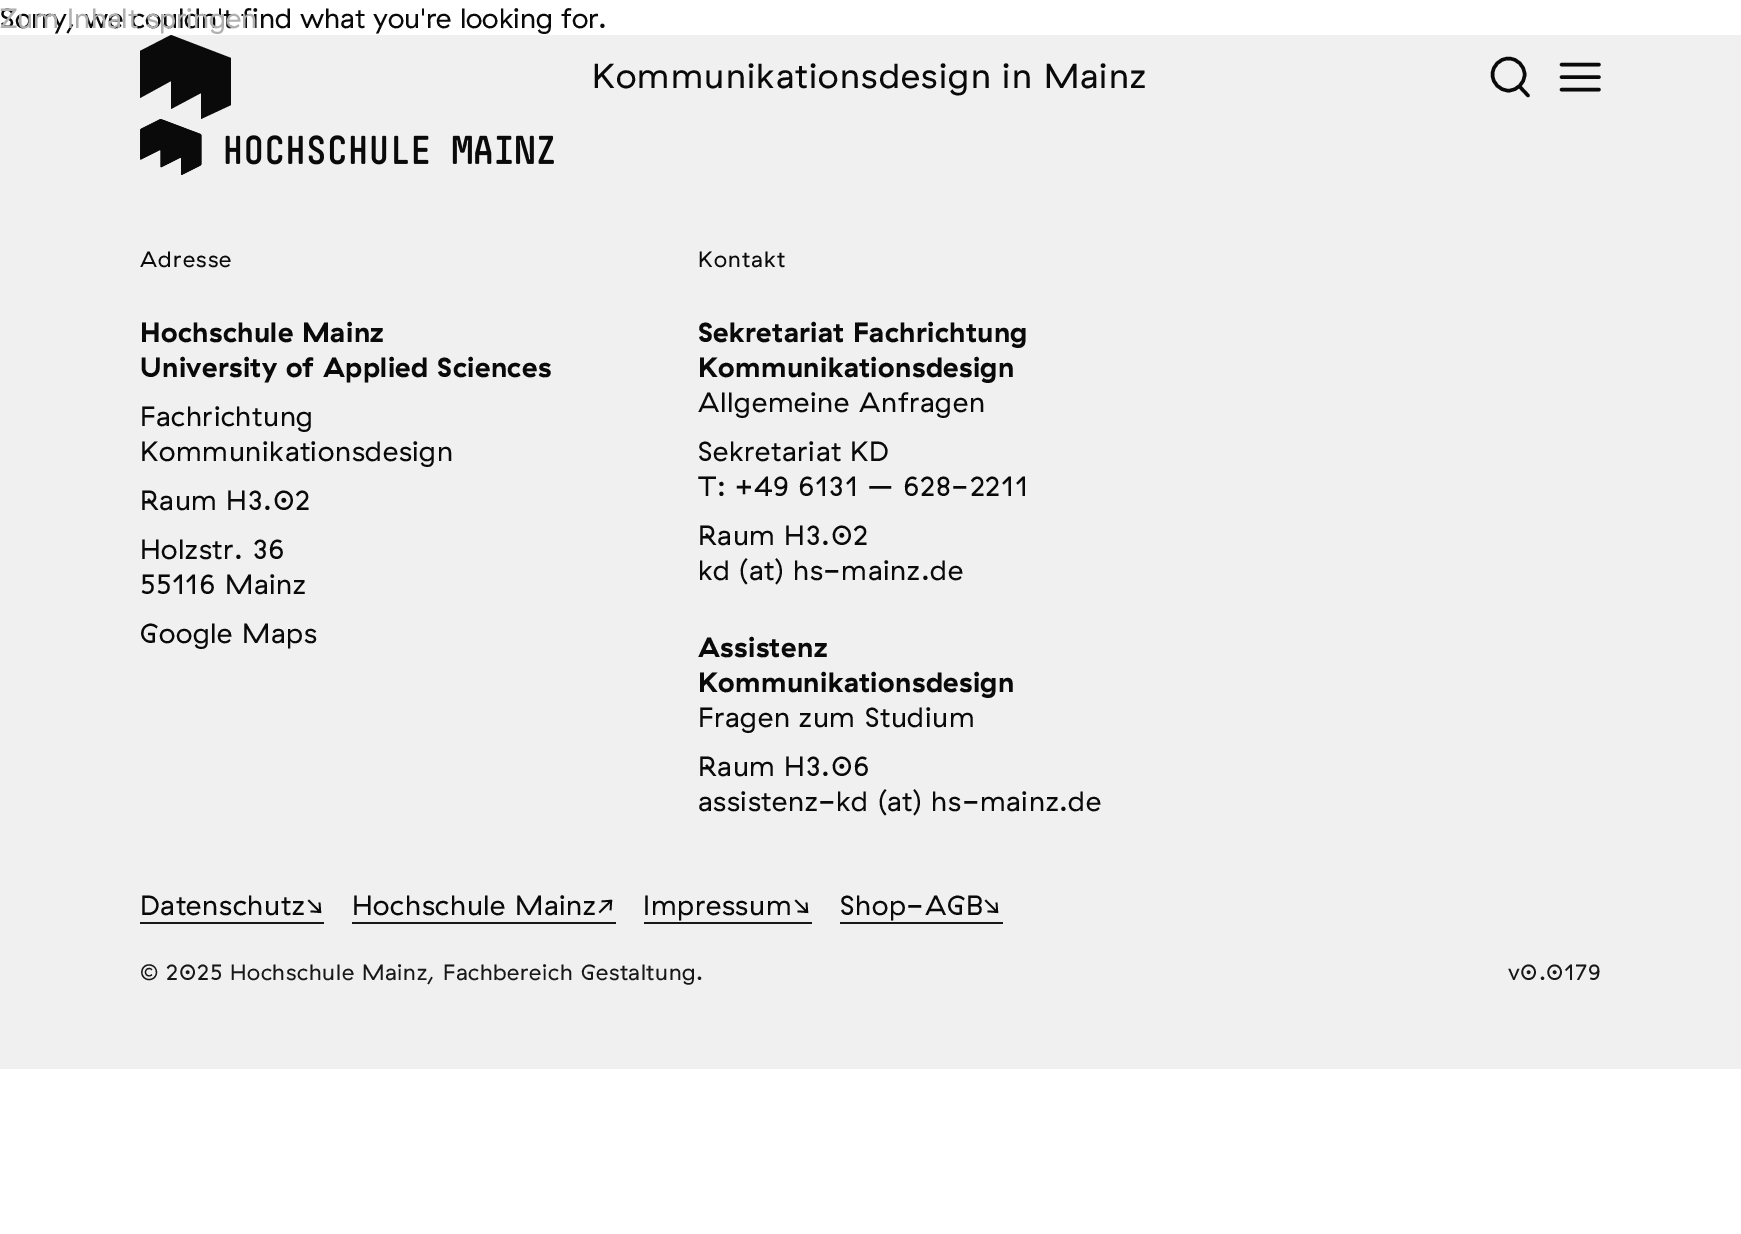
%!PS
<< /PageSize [1741 1234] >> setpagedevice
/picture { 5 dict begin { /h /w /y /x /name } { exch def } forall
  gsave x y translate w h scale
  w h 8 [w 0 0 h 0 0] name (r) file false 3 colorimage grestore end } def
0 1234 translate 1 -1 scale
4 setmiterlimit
1 setgray
0 0 1741 1234 rectfill
/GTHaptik-Regular [28 0 0 -28 0 0] selectfont
0.039 setgray
0 28 moveto (Sorry, we couldn't find what you're looking for.) show
0.69 setgray
0 28 moveto (Zum Inhalt springen) show
0.941 setgray
0 35 1741 1034 rectfill
0.039 setgray
newpath 140 98 moveto 140 51 lineto 171 35 lineto 231 58 lineto 231 105 lineto 201 119 lineto 201 93 lineto 171 109 lineto 171 81 lineto closepath fill
/GTHaptik-Regular [34.8 0 0 -34.8 0 0] selectfont
592 88 moveto -1 0 32 1.3 0 (Kommunikationsdesign in Mainz) awidthshow
3.4 setlinewidth
newpath 1508.5 74.5 16 0 360 arc closepath stroke
1 setlinecap
1 setlinejoin
newpath 1520 87 moveto 1528 95.5 lineto stroke
newpath 1561.5 64.5 moveto 1599 64.5 lineto 1561.5 77 moveto 1599 77 lineto 1561.5 89.5 moveto 1599 89.5 lineto stroke
(img1.rgb) 140 119 414 56 picture
/GTHaptik-Regular [22.3 0 0 -22.3 0 0] selectfont
140 267 moveto 1.25 0 (Adresse) ashow
/GTHaptik-Bold [27.9 0 0 -27.9 0 0] selectfont
140 342 moveto 0.4 0 (Hochschule Mainz) ashow
140 377 moveto 0.4 0 (University of Applied Sciences) ashow
/GTHaptik-Regular [27.9 0 0 -27.9 0 0] selectfont
140 426 moveto 0.7 0 (Fachrichtung) ashow
140 461 moveto 0.7 0 (Kommunikationsdesign) ashow
140 510 moveto 0.7 0 (Raum H3.02) ashow
140 559 moveto 0.7 0 (Holzstr. 36) ashow
140 594 moveto 0.7 0 (55116 Mainz) ashow
140 643 moveto 0.7 0 (Google Maps) ashow
/GTHaptik-Regular [22.3 0 0 -22.3 0 0] selectfont
698 267 moveto 1.25 0 (Kontakt) ashow
/GTHaptik-Bold [27.9 0 0 -27.9 0 0] selectfont
698 342 moveto 0.4 0 (Sekretariat Fachrichtung) ashow
698 377 moveto 0.4 0 (Kommunikationsdesign) ashow
/GTHaptik-Regular [27.9 0 0 -27.9 0 0] selectfont
698 412 moveto 0.7 0 (Allgemeine Anfragen) ashow
698 461 moveto 0.7 0 (Sekretariat KD) ashow
698 496 moveto 0.7 0 (T: +49 6131 – 628-2211) ashow
698 545 moveto 0.7 0 (Raum H3.02) ashow
698 580 moveto 0.7 0 (kd \(at\) hs-mainz.de) ashow
/GTHaptik-Bold [27.9 0 0 -27.9 0 0] selectfont
698 657 moveto 0.4 0 (Assistenz) ashow
698 692 moveto 0.4 0 (Kommunikationsdesign) ashow
/GTHaptik-Regular [27.9 0 0 -27.9 0 0] selectfont
698 727 moveto 0.7 0 (Fragen zum Studium) ashow
698 776 moveto 0.7 0 (Raum H3.06) ashow
698 811 moveto 0.7 0 (assistenz-kd \(at\) hs-mainz.de) ashow
140 915 moveto 0.7 0 (Datenschutz) ashow
0.094 setgray
140 922 184 2 rectfill
/GTHaptik-Regular [25 0 0 -25 0 0] selectfont
0.039 setgray
305 915 moveto 0.7 0 (↘) ashow
/GTHaptik-Regular [27.9 0 0 -27.9 0 0] selectfont
352 915 moveto 0.7 0 (Hochschule Mainz) ashow
0.094 setgray
352 922 264 2 rectfill
/GTHaptik-Regular [25 0 0 -25 0 0] selectfont
0.039 setgray
596 915 moveto 0.7 0 (↗) ashow
/GTHaptik-Regular [27.9 0 0 -27.9 0 0] selectfont
643 915 moveto 0.7 0 (Impressum) ashow
0.094 setgray
644 922 168 2 rectfill
/GTHaptik-Regular [25 0 0 -25 0 0] selectfont
0.039 setgray
792 915 moveto 0.7 0 (↘) ashow
/GTHaptik-Regular [27.9 0 0 -27.9 0 0] selectfont
840 915 moveto 0.7 0 (Shop-AGB) ashow
0.094 setgray
840 922 163 2 rectfill
/GTHaptik-Regular [25 0 0 -25 0 0] selectfont
0.039 setgray
982 915 moveto 0.7 0 (↘) ashow
/GTHaptik-Regular [22.3 0 0 -22.3 0 0] selectfont
0.094 setgray
140 980 moveto 0.7 0 (© 2025 Hochschule Mainz, Fachbereich Gestaltung.) ashow
1508 980 moveto 0.7 0 (v0.0179) ashow
showpage
